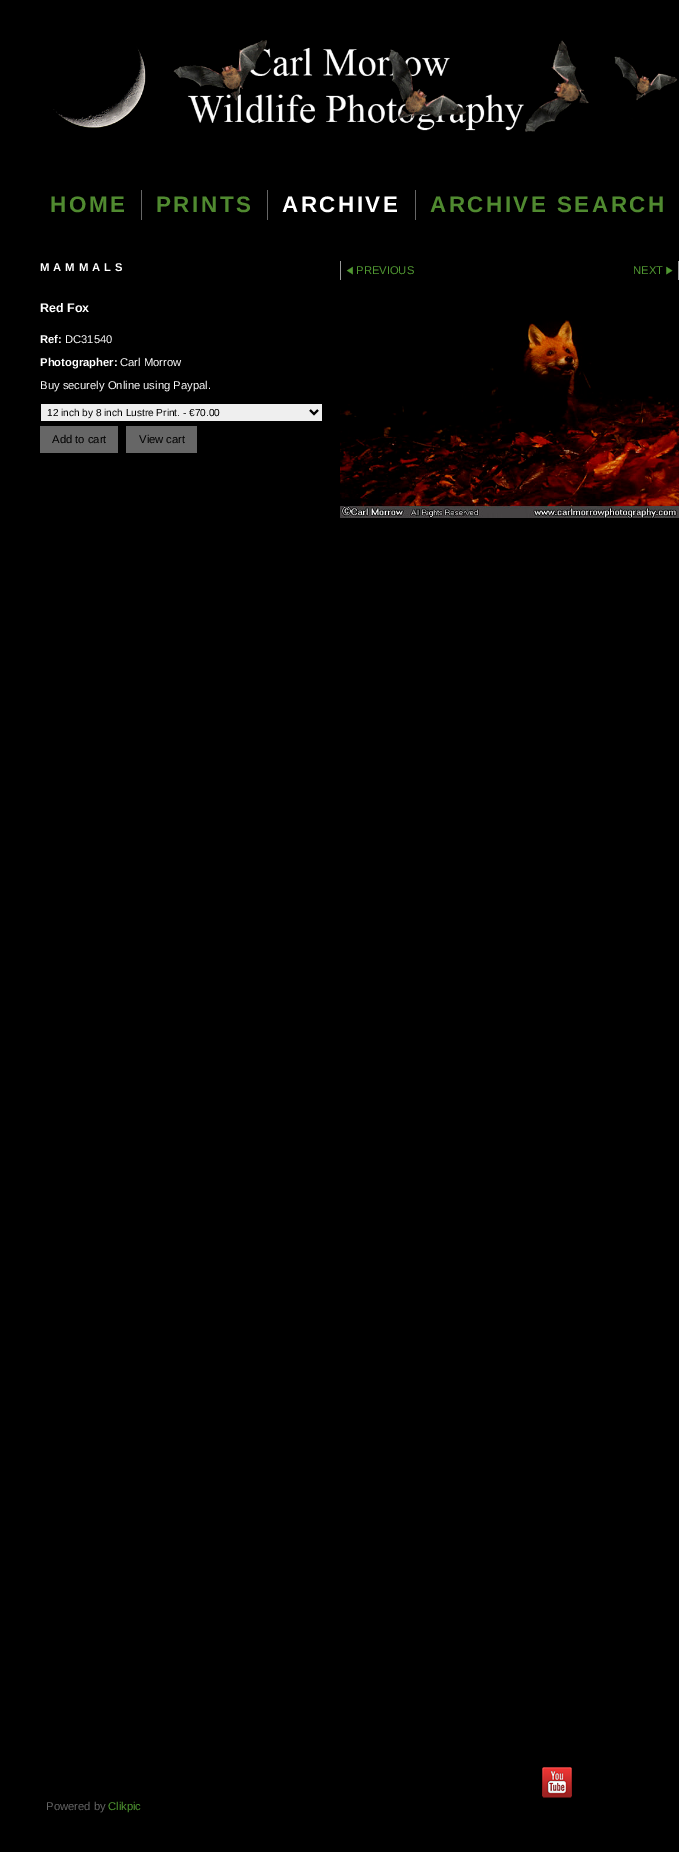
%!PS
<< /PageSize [679 1852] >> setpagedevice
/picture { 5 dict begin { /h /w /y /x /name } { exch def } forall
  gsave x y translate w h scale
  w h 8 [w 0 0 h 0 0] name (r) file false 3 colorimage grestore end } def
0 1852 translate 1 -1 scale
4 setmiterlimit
0 setgray
0 0 679 1852 rectfill
(img1.rgb) 53 40 625 92 picture
/LiberationSans-Bold [22.4 0 0 -22.4 0 0] selectfont
0.314 0.541 0.188 setrgbcolor
50 212 moveto 2.5 0 (HOME) ashow
0.4 setgray
141 190 1 30 rectfill
0.314 0.541 0.188 setrgbcolor
156 212 moveto 2.5 0 (PRINTS) ashow
0.4 setgray
267 190 1 30 rectfill
1 setgray
282 212 moveto 2.5 0 (ARCHIVE) ashow
0.4 setgray
415 190 1 30 rectfill
0.314 0.541 0.188 setrgbcolor
430 212 moveto 2.5 0 (ARCHIVE SEARCH) ashow
/LiberationSans-Bold [11.25 0 0 -11.25 0 0] selectfont
1 setgray
40 271 moveto 4 0 (MAMMALS) ashow
/LiberationSans-Bold [12.5 0 0 -12.5 0 0] selectfont
40 312 moveto (Red Fox) show
/LiberationSans-Bold [11.25 0 0 -11.25 0 0] selectfont
40 343 moveto (Ref:) show
/LiberationSans-Regular [11.25 0 0 -11.25 0 0] selectfont
65 343 moveto (DC31540) show
/LiberationSans-Bold [11.25 0 0 -11.25 0 0] selectfont
40 366 moveto (Photographer:) show
/LiberationSans-Regular [11.25 0 0 -11.25 0 0] selectfont
120 366 moveto (Carl Morrow) show
40 389 moveto (Buy securely Online using Paypal.) show
0.937 setgray
41 404 281 17 rectfill
0 setgray
2 setlinewidth
newpath 310 410 moveto 314 414 lineto 318 410 lineto stroke
/LiberationSans-Regular [10.1 0 0 -10.1 0 0] selectfont
47 416 moveto (12 inch by 8 inch Lustre Print. - €70.00) show
0.4 setgray
40 426 78 27 rectfill
/LiberationSans-Regular [11.25 0 0 -11.25 0 0] selectfont
0 setgray
52 443 moveto (Add to cart) show
0.4 setgray
126 426 71 27 rectfill
0 setgray
139 443 moveto (View cart) show
0.6 setgray
340 261 1 19 rectfill
(img2.rgb) 346 266 7 9 picture
0.318 0.6 0.196 setrgbcolor
356 274 moveto (PREVIOUS) show
0.6 setgray
678 261 1 19 rectfill
0.318 0.6 0.196 setrgbcolor
633 274 moveto (NEXT) show
(img3.rgb) 666 266 7 9 picture
(img4.rgb) 340 320 339 198 picture
(img5.rgb) 542 1767 30 31 picture
0.4 setgray
46 1810 moveto (Powered by) show
0.318 0.6 0.196 setrgbcolor
108 1810 moveto (Clikpic) show
showpage
